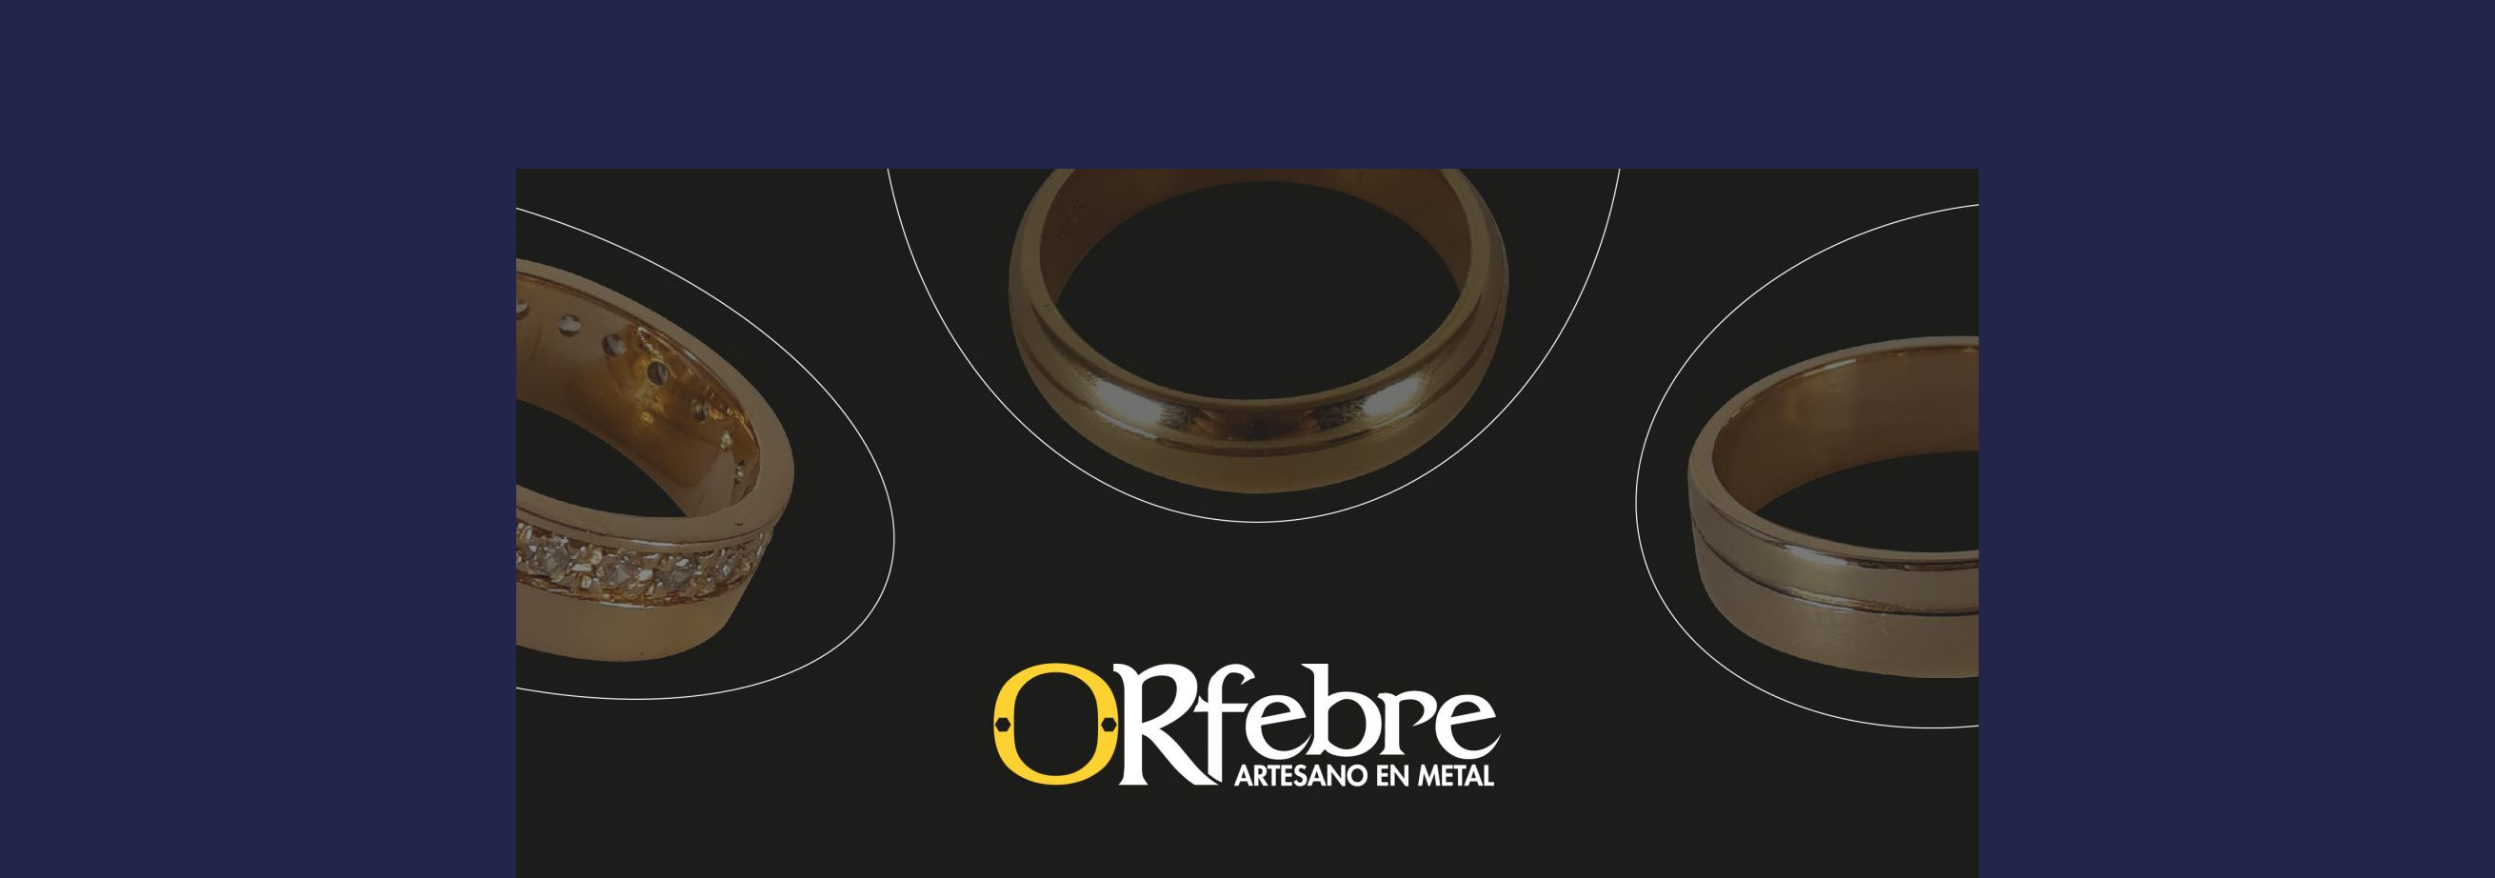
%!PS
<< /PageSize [2495 878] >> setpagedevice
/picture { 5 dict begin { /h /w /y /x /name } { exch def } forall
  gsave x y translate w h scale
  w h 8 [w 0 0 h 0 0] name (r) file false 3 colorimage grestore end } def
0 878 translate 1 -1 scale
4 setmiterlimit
0.137 0.145 0.298 setrgbcolor
0 0 2495 878 rectfill
(img1.rgb) 516 168 1463 710 picture
showpage
